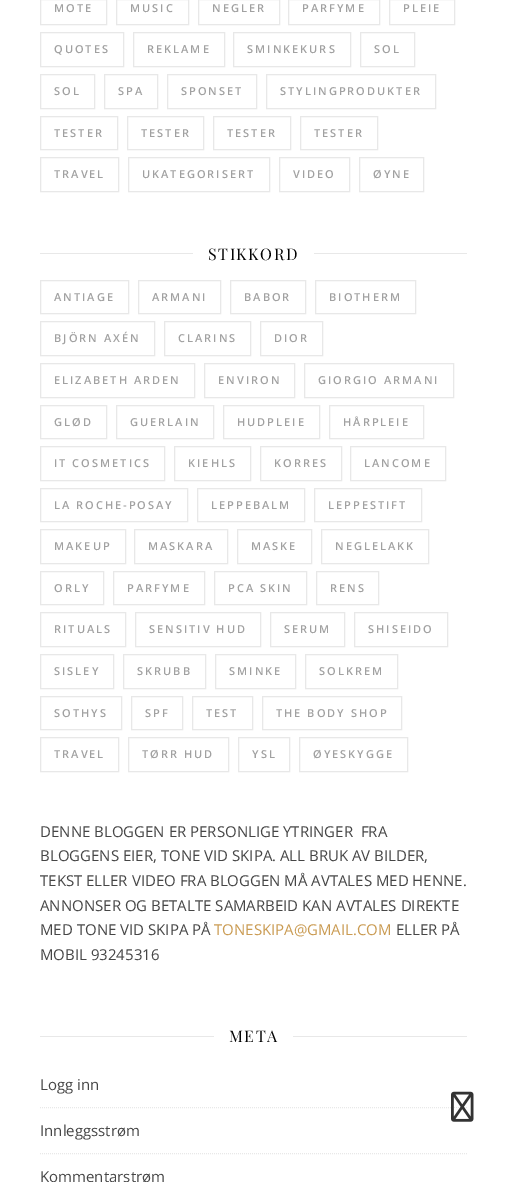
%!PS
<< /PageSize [507 1182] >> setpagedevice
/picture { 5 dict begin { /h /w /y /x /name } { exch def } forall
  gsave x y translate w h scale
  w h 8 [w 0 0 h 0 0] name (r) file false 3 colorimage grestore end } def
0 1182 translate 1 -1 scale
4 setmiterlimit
1 setgray
0 0 507 1182 rectfill
0.91 setgray
40.5 -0.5 66 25 rectstroke
/OpenSans-SemiBold [11 0 0 -11 0 0] selectfont
0.631 setgray
54 12 moveto 2 0 (MOTE) ashow
0.91 setgray
116.5 -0.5 72 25 rectstroke
0.631 setgray
130 12 moveto 2 0 (MUSIC) ashow
0.91 setgray
198.5 -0.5 81 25 rectstroke
0.631 setgray
212 12 moveto 2 0 (NEGLER) ashow
0.91 setgray
288.5 -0.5 91 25 rectstroke
0.631 setgray
302 12 moveto 2 0 (PARFYME) ashow
0.91 setgray
389.5 -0.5 65 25 rectstroke
0.631 setgray
403 12 moveto 2 0 (PLEIE) ashow
0.91 setgray
40.5 32.5 83 34 rectstroke
0.631 setgray
54 53 moveto 2 0 (QUOTES) ashow
0.91 setgray
133.5 32.5 91 34 rectstroke
0.631 setgray
147 53 moveto 2 0 (REKLAME) ashow
0.91 setgray
233.5 32.5 117 34 rectstroke
0.631 setgray
247 53 moveto 2 0 (SMINKEKURS) ashow
0.91 setgray
360.5 32.5 54 34 rectstroke
0.631 setgray
374 53 moveto 2 0 (SOL) ashow
0.91 setgray
40.5 74.5 54 34 rectstroke
0.631 setgray
54 95 moveto 2 0 (SOL) ashow
0.91 setgray
104.5 74.5 53 34 rectstroke
0.631 setgray
118 95 moveto 2 0 (SPA) ashow
0.91 setgray
167.5 74.5 89 34 rectstroke
0.631 setgray
181 95 moveto 2 0 (SPONSET) ashow
0.91 setgray
266.5 74.5 169 34 rectstroke
0.631 setgray
280 95 moveto 2 0 (STYLINGPRODUKTER) ashow
0.91 setgray
40.5 116.5 77 33 rectstroke
0.631 setgray
54 137 moveto 2 0 (TESTER) ashow
0.91 setgray
127.5 116.5 76 33 rectstroke
0.631 setgray
141 137 moveto 2 0 (TESTER) ashow
0.91 setgray
213.5 116.5 77 33 rectstroke
0.631 setgray
227 137 moveto 2 0 (TESTER) ashow
0.91 setgray
300.5 116.5 77 33 rectstroke
0.631 setgray
314 137 moveto 2 0 (TESTER) ashow
0.91 setgray
40.5 157.5 78 34 rectstroke
0.631 setgray
54 178 moveto 2 0 (TRAVEL) ashow
0.91 setgray
128.5 157.5 141 34 rectstroke
0.631 setgray
142 178 moveto 2 0 (UKATEGORISERT) ashow
0.91 setgray
279.5 157.5 70 34 rectstroke
0.631 setgray
293 178 moveto 2 0 (VIDEO) ashow
0.91 setgray
359.5 157.5 64 34 rectstroke
0.631 setgray
373 178 moveto 2 0 (ØYNE) ashow
0.91 setgray
40 253 153 1 rectfill
/PlayfairDisplay-Regular [16 0 0 -16 0 0] selectfont
0.012 setgray
208 260 moveto 1.5 0 (STIKKORD) ashow
0.91 setgray
314 253 153 1 rectfill
40.5 280.5 88 33 rectstroke
/OpenSans-SemiBold [11 0 0 -11 0 0] selectfont
0.631 setgray
54 301 moveto 2 0 (ANTIAGE) ashow
0.91 setgray
138.5 280.5 82 33 rectstroke
0.631 setgray
152 301 moveto 2 0 (ARMANI) ashow
0.91 setgray
230.5 280.5 75 33 rectstroke
0.631 setgray
244 301 moveto 2 0 (BABOR) ashow
0.91 setgray
315.5 280.5 100 33 rectstroke
0.631 setgray
329 301 moveto 2 0 (BIOTHERM) ashow
0.91 setgray
40.5 321.5 114 34 rectstroke
0.631 setgray
54 342 moveto 2 0 (BJÖRN AXÉN) ashow
0.91 setgray
164.5 321.5 86 34 rectstroke
0.631 setgray
178 342 moveto 2 0 (CLARINS) ashow
0.91 setgray
260.5 321.5 62 34 rectstroke
0.631 setgray
274 342 moveto 2 0 (DIOR) ashow
0.91 setgray
40.5 363.5 154 34 rectstroke
0.631 setgray
54 384 moveto 2 0 (ELIZABETH ARDEN) ashow
0.91 setgray
204.5 363.5 90 34 rectstroke
0.631 setgray
218 384 moveto 2 0 (ENVIRON) ashow
0.91 setgray
304.5 363.5 149 34 rectstroke
0.631 setgray
318 384 moveto 2 0 (GIORGIO ARMANI) ashow
0.91 setgray
40.5 405.5 66 33 rectstroke
0.631 setgray
54 426 moveto 2 0 (GLØD) ashow
0.91 setgray
116.5 405.5 97 33 rectstroke
0.631 setgray
130 426 moveto 2 0 (GUERLAIN) ashow
0.91 setgray
223.5 405.5 96 33 rectstroke
0.631 setgray
237 426 moveto 2 0 (HUDPLEIE) ashow
0.91 setgray
329.5 405.5 94 33 rectstroke
0.631 setgray
343 426 moveto 2 0 (HÅRPLEIE) ashow
0.91 setgray
40.5 446.5 124 34 rectstroke
0.631 setgray
54 467 moveto 2 0 (IT COSMETICS) ashow
0.91 setgray
174.5 446.5 76 34 rectstroke
0.631 setgray
188 467 moveto 2 0 (KIEHLS) ashow
0.91 setgray
260.5 446.5 81 34 rectstroke
0.631 setgray
274 467 moveto 2 0 (KORRES) ashow
0.91 setgray
350.5 446.5 95 34 rectstroke
0.631 setgray
364 467 moveto 2 0 (LANCOME) ashow
0.91 setgray
40.5 488.5 147 33 rectstroke
0.631 setgray
54 509 moveto 2 0 (LA ROCHE-POSAY) ashow
0.91 setgray
197.5 488.5 107 33 rectstroke
0.631 setgray
211 509 moveto 2 0 (LEPPEBALM) ashow
0.91 setgray
314.5 488.5 107 33 rectstroke
0.631 setgray
328 509 moveto 2 0 (LEPPESTIFT) ashow
0.91 setgray
40.5 529.5 85 34 rectstroke
0.631 setgray
54 550 moveto 2 0 (MAKEUP) ashow
0.91 setgray
134.5 529.5 93 34 rectstroke
0.631 setgray
148 550 moveto 2 0 (MASKARA) ashow
0.91 setgray
237.5 529.5 74 34 rectstroke
0.631 setgray
251 550 moveto 2 0 (MASKE) ashow
0.91 setgray
321.5 529.5 107 34 rectstroke
0.631 setgray
335 550 moveto 2 0 (NEGLELAKK) ashow
0.91 setgray
40.5 571.5 63 33 rectstroke
0.631 setgray
54 592 moveto 2 0 (ORLY) ashow
0.91 setgray
113.5 571.5 91 33 rectstroke
0.631 setgray
127 592 moveto 2 0 (PARFYME) ashow
0.91 setgray
214.5 571.5 92 33 rectstroke
0.631 setgray
228 592 moveto 2 0 (PCA SKIN) ashow
0.91 setgray
316.5 571.5 62 33 rectstroke
0.631 setgray
330 592 moveto 2 0 (RENS) ashow
0.91 setgray
40.5 612.5 85 34 rectstroke
0.631 setgray
54 633 moveto 2 0 (RITUALS) ashow
0.91 setgray
135.5 612.5 125 34 rectstroke
0.631 setgray
149 633 moveto 2 0 (SENSITIV HUD) ashow
0.91 setgray
270.5 612.5 74 34 rectstroke
0.631 setgray
284 633 moveto 2 0 (SERUM) ashow
0.91 setgray
354.5 612.5 93 34 rectstroke
0.631 setgray
368 633 moveto 2 0 (SHISEIDO) ashow
0.91 setgray
40.5 654.5 73 34 rectstroke
0.631 setgray
54 675 moveto 2 0 (SISLEY) ashow
0.91 setgray
123.5 654.5 82 34 rectstroke
0.631 setgray
137 675 moveto 2 0 (SKRUBB) ashow
0.91 setgray
215.5 654.5 80 34 rectstroke
0.631 setgray
229 675 moveto 2 0 (SMINKE) ashow
0.91 setgray
305.5 654.5 92 34 rectstroke
0.631 setgray
319 675 moveto 2 0 (SOLKREM) ashow
0.91 setgray
40.5 696.5 81 33 rectstroke
0.631 setgray
54 717 moveto 2 0 (SOTHYS) ashow
0.91 setgray
131.5 696.5 51 33 rectstroke
0.631 setgray
145 717 moveto 2 0 (SPF) ashow
0.91 setgray
192.5 696.5 60 33 rectstroke
0.631 setgray
206 717 moveto 2 0 (TEST) ashow
0.91 setgray
262.5 696.5 139 33 rectstroke
0.631 setgray
276 717 moveto 2 0 (THE BODY SHOP) ashow
0.91 setgray
40.5 737.5 78 34 rectstroke
0.631 setgray
54 758 moveto 2 0 (TRAVEL) ashow
0.91 setgray
128.5 737.5 100 34 rectstroke
0.631 setgray
142 758 moveto 2 0 (TØRR HUD) ashow
0.91 setgray
238.5 737.5 51 34 rectstroke
0.631 setgray
252 758 moveto 2 0 (YSL) ashow
0.91 setgray
299.5 737.5 108 34 rectstroke
0.631 setgray
313 758 moveto 2 0 (ØYESKYGGE) ashow
/OpenSans-Regular [15 0 0 -15 0 0] selectfont
0.275 setgray
40 837 moveto (DENNE BLOGGEN ER PERSONLIGE YTRINGER  FRA) show
40 861 moveto (BLOGGENS EIER, TONE VID SKIPA. ALL BRUK AV BILDER,) show
40 886 moveto (TEKST ELLER VIDEO FRA BLOGGEN MÅ AVTALES MED HENNE.) show
40 911 moveto (ANNONSER OG BETALTE SAMARBEID KAN AVTALES DIREKTE) show
40 935 moveto (MED TONE VID SKIPA PÅ) show
0.792 0.608 0.322 setrgbcolor
214 935 moveto (TONESKIPA@GMAIL.COM) show
0.275 setgray
396 935 moveto (ELLER PÅ) show
40 960 moveto (MOBIL 93245316) show
0.91 setgray
40 1036 174 1 rectfill
/PlayfairDisplay-Regular [16 0 0 -16 0 0] selectfont
0.012 setgray
229 1042 moveto 1.5 0 (META) ashow
0.91 setgray
293 1036 174 1 rectfill
[1 1] 0 setdash
newpath 40 1107.5 moveto 467 1107.5 lineto stroke
/OpenSans-Regular [15 0 0 -15 0 0] selectfont
0.275 setgray
40 1090 moveto (Logg inn) show
0.91 setgray
newpath 40 1153.5 moveto 467 1153.5 lineto stroke
0.275 setgray
40 1136 moveto (Innleggsstrøm) show
40 1182 moveto (Kommentarstrøm) show
(img1.rgb) 451 1091 23 31 picture
showpage
